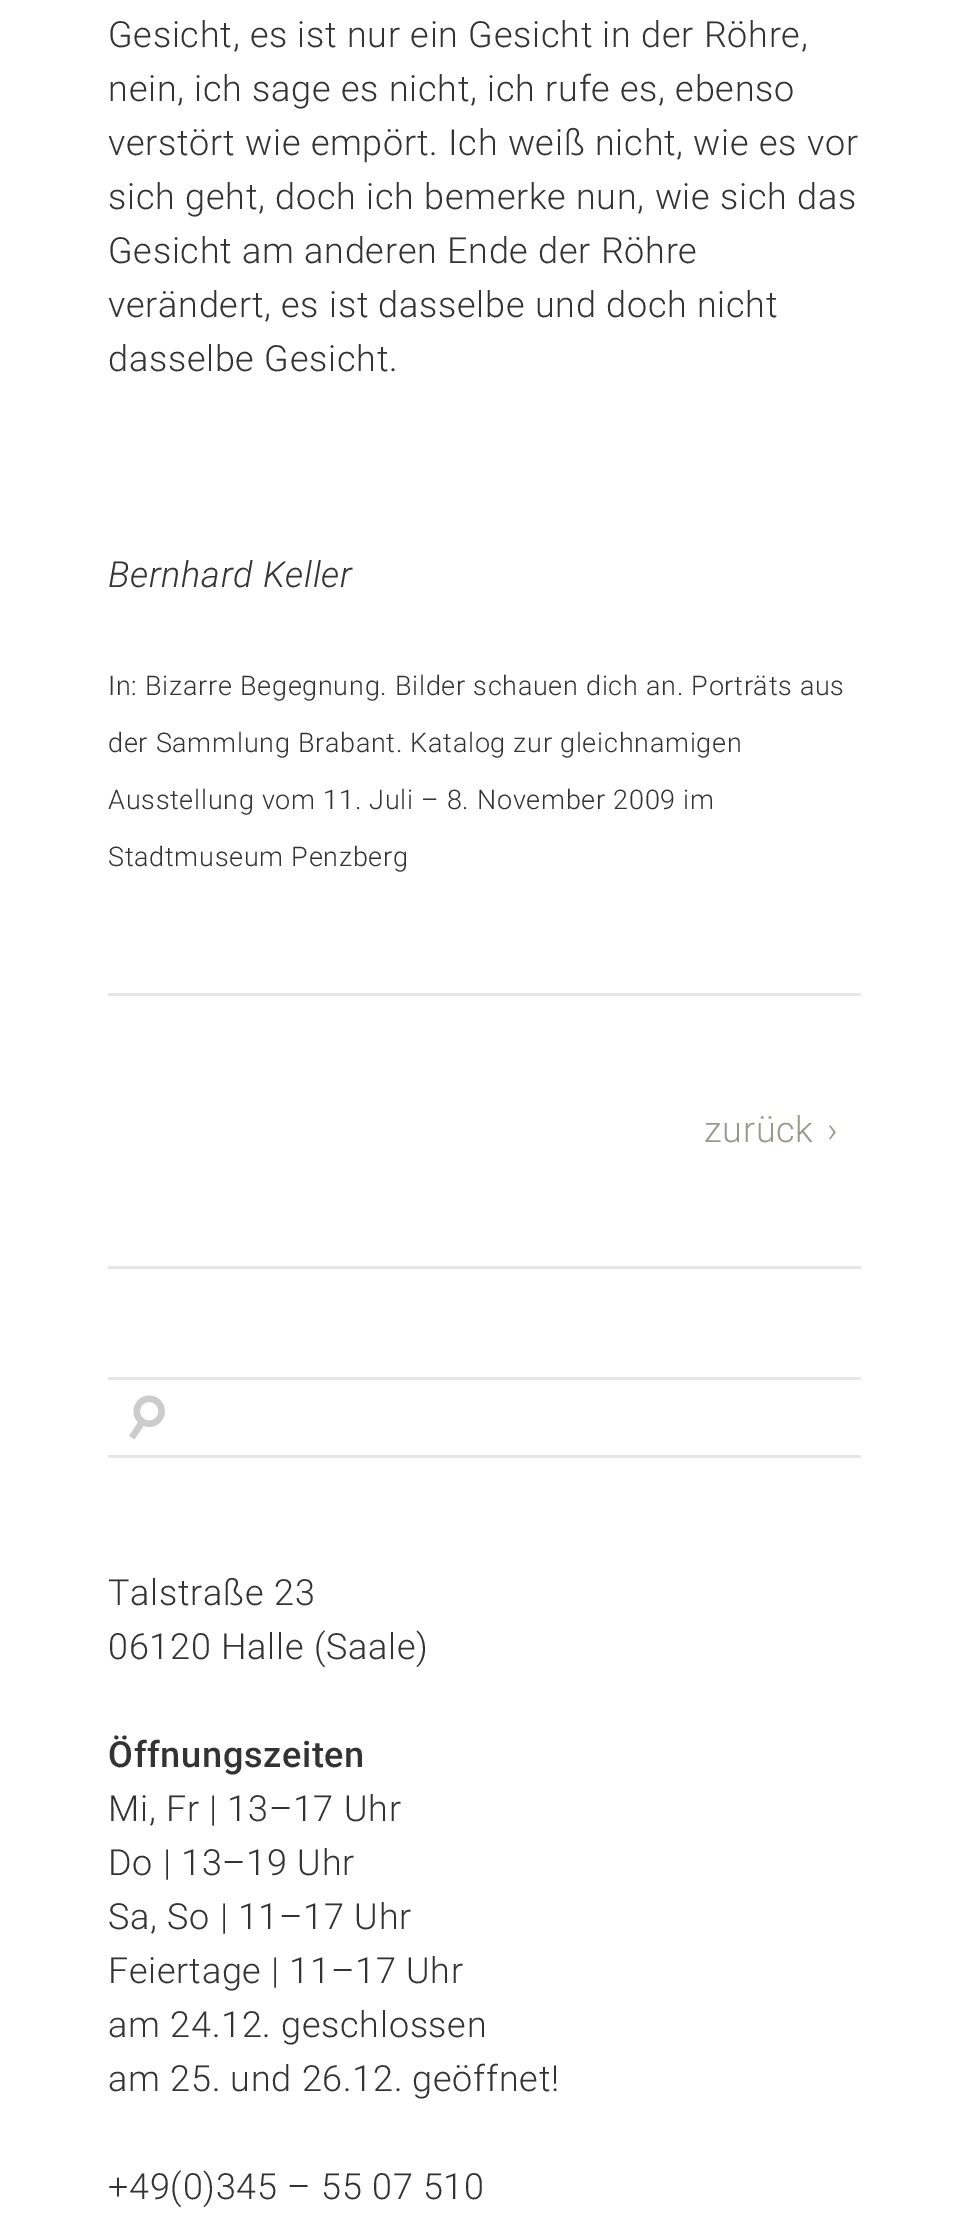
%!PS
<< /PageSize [969 2219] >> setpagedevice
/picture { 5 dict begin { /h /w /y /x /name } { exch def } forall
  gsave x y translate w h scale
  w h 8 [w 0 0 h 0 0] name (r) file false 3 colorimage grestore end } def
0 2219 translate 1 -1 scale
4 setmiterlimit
1 setgray
0 0 969 2219 rectfill
/Roboto-Light [36 0 0 -36 0 0] selectfont
0.2 setgray
108 47 moveto 0.72 0 (Gesicht, es ist nur ein Gesicht in der Röhre,) ashow
108 101 moveto 0.72 0 (nein, ich sage es nicht, ich rufe es, ebenso) ashow
108 155 moveto 0.72 0 (verstört wie empört. Ich weiß nicht, wie es vor) ashow
108 209 moveto 0.72 0 (sich geht, doch ich bemerke nun, wie sich das) ashow
108 263 moveto 0.72 0 (Gesicht am anderen Ende der Röhre) ashow
108 317 moveto 0.72 0 (verändert, es ist dasselbe und doch nicht) ashow
108 371 moveto 0.72 0 (dasselbe Gesicht.) ashow
/Roboto-LightItalic [36 0 0 -36 0 0] selectfont
108 587 moveto 0.72 0 (Bernhard Keller) ashow
/Roboto-Light [27 0 0 -27 0 0] selectfont
108 695 moveto 0.72 0 (In: Bizarre Begegnung. Bilder schauen dich an. Porträts aus) ashow
108 752 moveto 0.72 0 (der Sammlung Brabant. Katalog zur gleichnamigen) ashow
108 809 moveto 0.72 0 (Ausstellung vom 11. Juli – 8. November 2009 im) ashow
108 866 moveto 0.72 0 (Stadtmuseum Penzberg) ashow
0.902 setgray
108 993 753 3 rectfill
/Roboto-Light [36 0 0 -36 0 0] selectfont
0.6 0.592 0.541 setrgbcolor
704 1142 moveto 0.72 0 (zurück) ashow
827 1142 moveto 0.72 0 (›) ashow
0.902 setgray
108 1266 753 3 rectfill
(img1.rgb) 129 1395 36 45 picture
108 1377 753 3 rectfill
108 1455 753 3 rectfill
0.2 setgray
108 1605 moveto 0.72 0 (Talstraße 23) ashow
108 1659 moveto 0.72 0 (06120 Halle \(Saale\)) ashow
/Roboto-Medium [36 0 0 -36 0 0] selectfont
108 1767 moveto 0.72 0 (Öffnungszeiten) ashow
/Roboto-Light [36 0 0 -36 0 0] selectfont
108 1821 moveto 0.72 0 (Mi, Fr | 13–17 Uhr) ashow
108 1875 moveto 0.72 0 (Do | 13–19 Uhr) ashow
108 1929 moveto 0.72 0 (Sa, So | 11–17 Uhr) ashow
108 1983 moveto 0.72 0 (Feiertage | 11–17 Uhr) ashow
108 2037 moveto 0.72 0 (am 24.12. geschlossen) ashow
108 2091 moveto 0.72 0 (am 25. und 26.12. geöffnet!) ashow
108 2199 moveto 0.72 0 (+49\(0\)345 – 55 07 510) ashow
showpage
